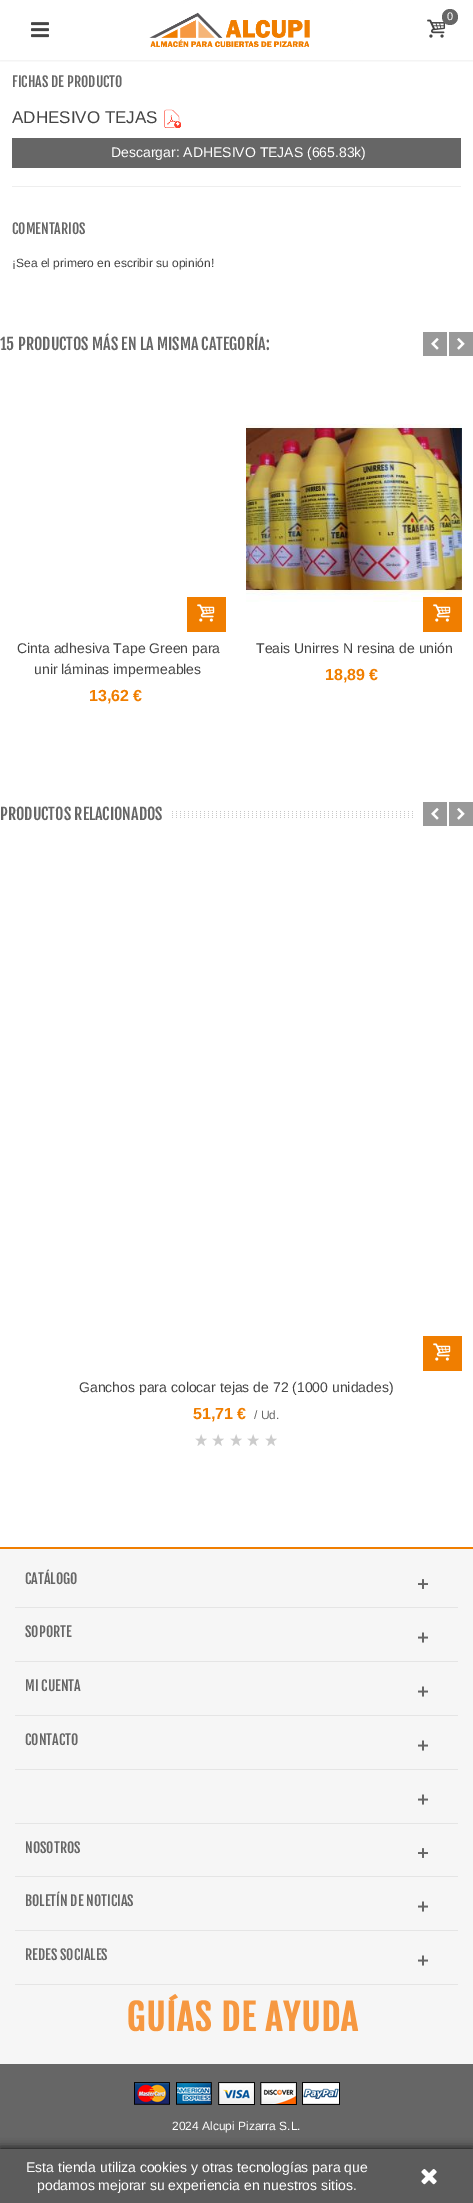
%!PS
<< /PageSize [473 2203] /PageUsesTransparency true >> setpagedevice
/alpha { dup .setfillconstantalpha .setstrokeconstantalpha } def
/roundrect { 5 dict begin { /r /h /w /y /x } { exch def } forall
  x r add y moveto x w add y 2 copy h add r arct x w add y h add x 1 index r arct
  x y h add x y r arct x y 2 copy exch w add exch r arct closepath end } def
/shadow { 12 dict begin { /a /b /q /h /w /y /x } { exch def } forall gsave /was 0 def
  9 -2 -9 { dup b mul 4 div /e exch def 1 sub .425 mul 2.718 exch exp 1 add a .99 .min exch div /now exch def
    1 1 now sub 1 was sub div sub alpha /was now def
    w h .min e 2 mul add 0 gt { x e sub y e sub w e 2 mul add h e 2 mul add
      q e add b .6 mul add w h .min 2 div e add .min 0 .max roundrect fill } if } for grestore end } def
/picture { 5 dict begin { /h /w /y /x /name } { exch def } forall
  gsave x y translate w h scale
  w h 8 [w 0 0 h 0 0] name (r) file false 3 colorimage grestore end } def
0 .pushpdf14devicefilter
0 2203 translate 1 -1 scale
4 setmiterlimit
1 setgray
0 0 473 2203 rectfill
(img4.rgb) 182 0 173 4 picture
gsave
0 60 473 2 rectclip
0 setgray
0 0 473 60 0 2 0.1 shadow
grestore
(img1.rgb) 149 12 161 35 picture
(img2.rgb) 427 19 19 19 picture
0.4 setgray
newpath 450 17 8 0 360 arc closepath fill
/LiberationSans-Regular [11 0 0 -11 0 0] selectfont
1 setgray
447 20 moveto (0) show
(img3.rgb) 31 22 18 16 picture
/FjallaOne-Regular [14 0 0 -14 0 0] selectfont
0.4 setgray
12 87 moveto (FICHAS DE PRODUCTO) show
/LiberationSans-Regular [17 0 0 -17 0 0] selectfont
0.267 setgray
12 123 moveto (ADHESIVO TEJAS) show
(img5.rgb) 164 109 17 19 picture
0.4 setgray
12 138 449 30 rectfill
/LiberationSans-Regular [14 0 0 -14 0 0] selectfont
1 setgray
111 157 moveto (Descargar: ADHESIVO TEJAS \(665.83k\)) show
0.933 setgray
12 186 449 1 rectfill
/FjallaOne-Regular [14 0 0 -14 0 0] selectfont
0.4 setgray
12 234 moveto (COMENTARIOS) show
/LiberationSans-Regular [12 0 0 -12 0 0] selectfont
0.267 setgray
12 267 moveto (¡Sea el primero en escribir su opinión!) show
/FjallaOne-Regular [16 0 0 -16 0 0] selectfont
0.4 setgray
0 350 moveto (15 PRODUCTOS MÁS EN LA MISMA CATEGORÍA:) show
0.6 setgray
423 332 24 24 rectfill
(img6.rgb) 431 338 8 12 picture
449 332 24 24 rectfill
(img7.rgb) 457 338 8 12 picture
0.941 0.494 0 setrgbcolor
187 597 39 35 rectfill
(img8.rgb) 197 604 18 18 picture
/LiberationSans-Regular [14 0 0 -14 0 0] selectfont
0.267 setgray
17 653 moveto (Cinta adhesiva Tape Green para) show
34 674 moveto (unir láminas impermeables) show
/LiberationSans-Bold [16 0 0 -16 0 0] selectfont
0.941 0.494 0 setrgbcolor
89 701 moveto (13,62 €) show
(img9.rgb) 246 424 216 178 picture
423 597 39 35 rectfill
(img8.rgb) 433 604 18 18 picture
/LiberationSans-Regular [14 0 0 -14 0 0] selectfont
0.267 setgray
256 653 moveto (Teais Unirres N resina de unión) show
/LiberationSans-Bold [16 0 0 -16 0 0] selectfont
0.941 0.494 0 setrgbcolor
325 680 moveto (18,89 €) show
(img10.rgb) 172 811 241 7 picture
/FjallaOne-Regular [16 0 0 -16 0 0] selectfont
0.4 setgray
0 820 moveto (PRODUCTOS RELACIONADOS) show
0.6 setgray
423 802 24 24 rectfill
(img6.rgb) 431 808 8 12 picture
449 802 24 24 rectfill
(img7.rgb) 457 808 8 12 picture
0.941 0.494 0 setrgbcolor
423 1336 39 35 rectfill
(img8.rgb) 433 1343 18 18 picture
/LiberationSans-Regular [14 0 0 -14 0 0] selectfont
0.267 setgray
79 1392 moveto (Ganchos para colocar tejas de 72 \(1000 unidades\)) show
/LiberationSans-Bold [16 0 0 -16 0 0] selectfont
0.941 0.494 0 setrgbcolor
193 1419 moveto (51,71 €) show
/LiberationSans-Regular [12 0 0 -12 0 0] selectfont
0.4 setgray
254 1419 moveto (/ Ud.) show
(img11.rgb) 195 1434 12 12 picture
(img11.rgb) 212 1434 12 12 picture
(img11.rgb) 230 1434 12 12 picture
(img11.rgb) 247 1434 12 12 picture
(img11.rgb) 265 1434 12 12 picture
0.965 setgray
0 1549 473 515 rectfill
0.941 0.494 0 setrgbcolor
0 1547 473 2 rectfill
0.898 setgray
15 1607 443 1 rectfill
/FjallaOne-Regular [14 0 0 -14 0 0] selectfont
0.4 setgray
25 1584 moveto (CATÁLOGO) show
(img12.rgb) 418 1579 10 10 picture
0.898 setgray
15 1661 443 1 rectfill
0.4 setgray
25 1637 moveto (SOPORTE) show
(img13.rgb) 418 1632 10 11 picture
0.898 setgray
15 1715 443 1 rectfill
0.4 setgray
25 1691 moveto (MI CUENTA) show
(img13.rgb) 418 1686 10 11 picture
0.898 setgray
15 1769 443 1 rectfill
0.4 setgray
25 1745 moveto (CONTACTO) show
(img13.rgb) 418 1740 10 11 picture
0.898 setgray
15 1823 443 1 rectfill
(img13.rgb) 418 1794 10 11 picture
15 1876 443 1 rectfill
0.4 setgray
25 1853 moveto (NOSOTROS) show
(img12.rgb) 418 1848 10 10 picture
0.898 setgray
15 1930 443 1 rectfill
0.4 setgray
25 1906 moveto (BOLETÍN DE NOTICIAS) show
(img13.rgb) 418 1901 10 11 picture
0.898 setgray
15 1984 443 1 rectfill
0.4 setgray
25 1960 moveto (REDES SOCIALES) show
(img13.rgb) 418 1955 10 11 picture
(img14.rgb) 128 1994 231 38 picture
0 2064 473 85 rectfill
0 setgray
0 2149 473 54 0 5 1 shadow
0.361 setgray
0 2149 473 54 rectfill
/LiberationSans-Regular [14 0 0 -14 0 0] selectfont
1 setgray
26 2172 moveto (Esta tienda utiliza cookies y otras tecnologías para que) show
37 2190 moveto (podamos mejorar su experiencia en nuestros sitios.) show
(img15.rgb) 421 2169 16 16 picture
(img16.rgb) 134 2082 206 23 picture
/LiberationSans-Regular [12 0 0 -12 0 0] selectfont
172 2130 moveto (2024 Alcupi Pizarra S.L.) show
.poppdf14devicefilter showpage
